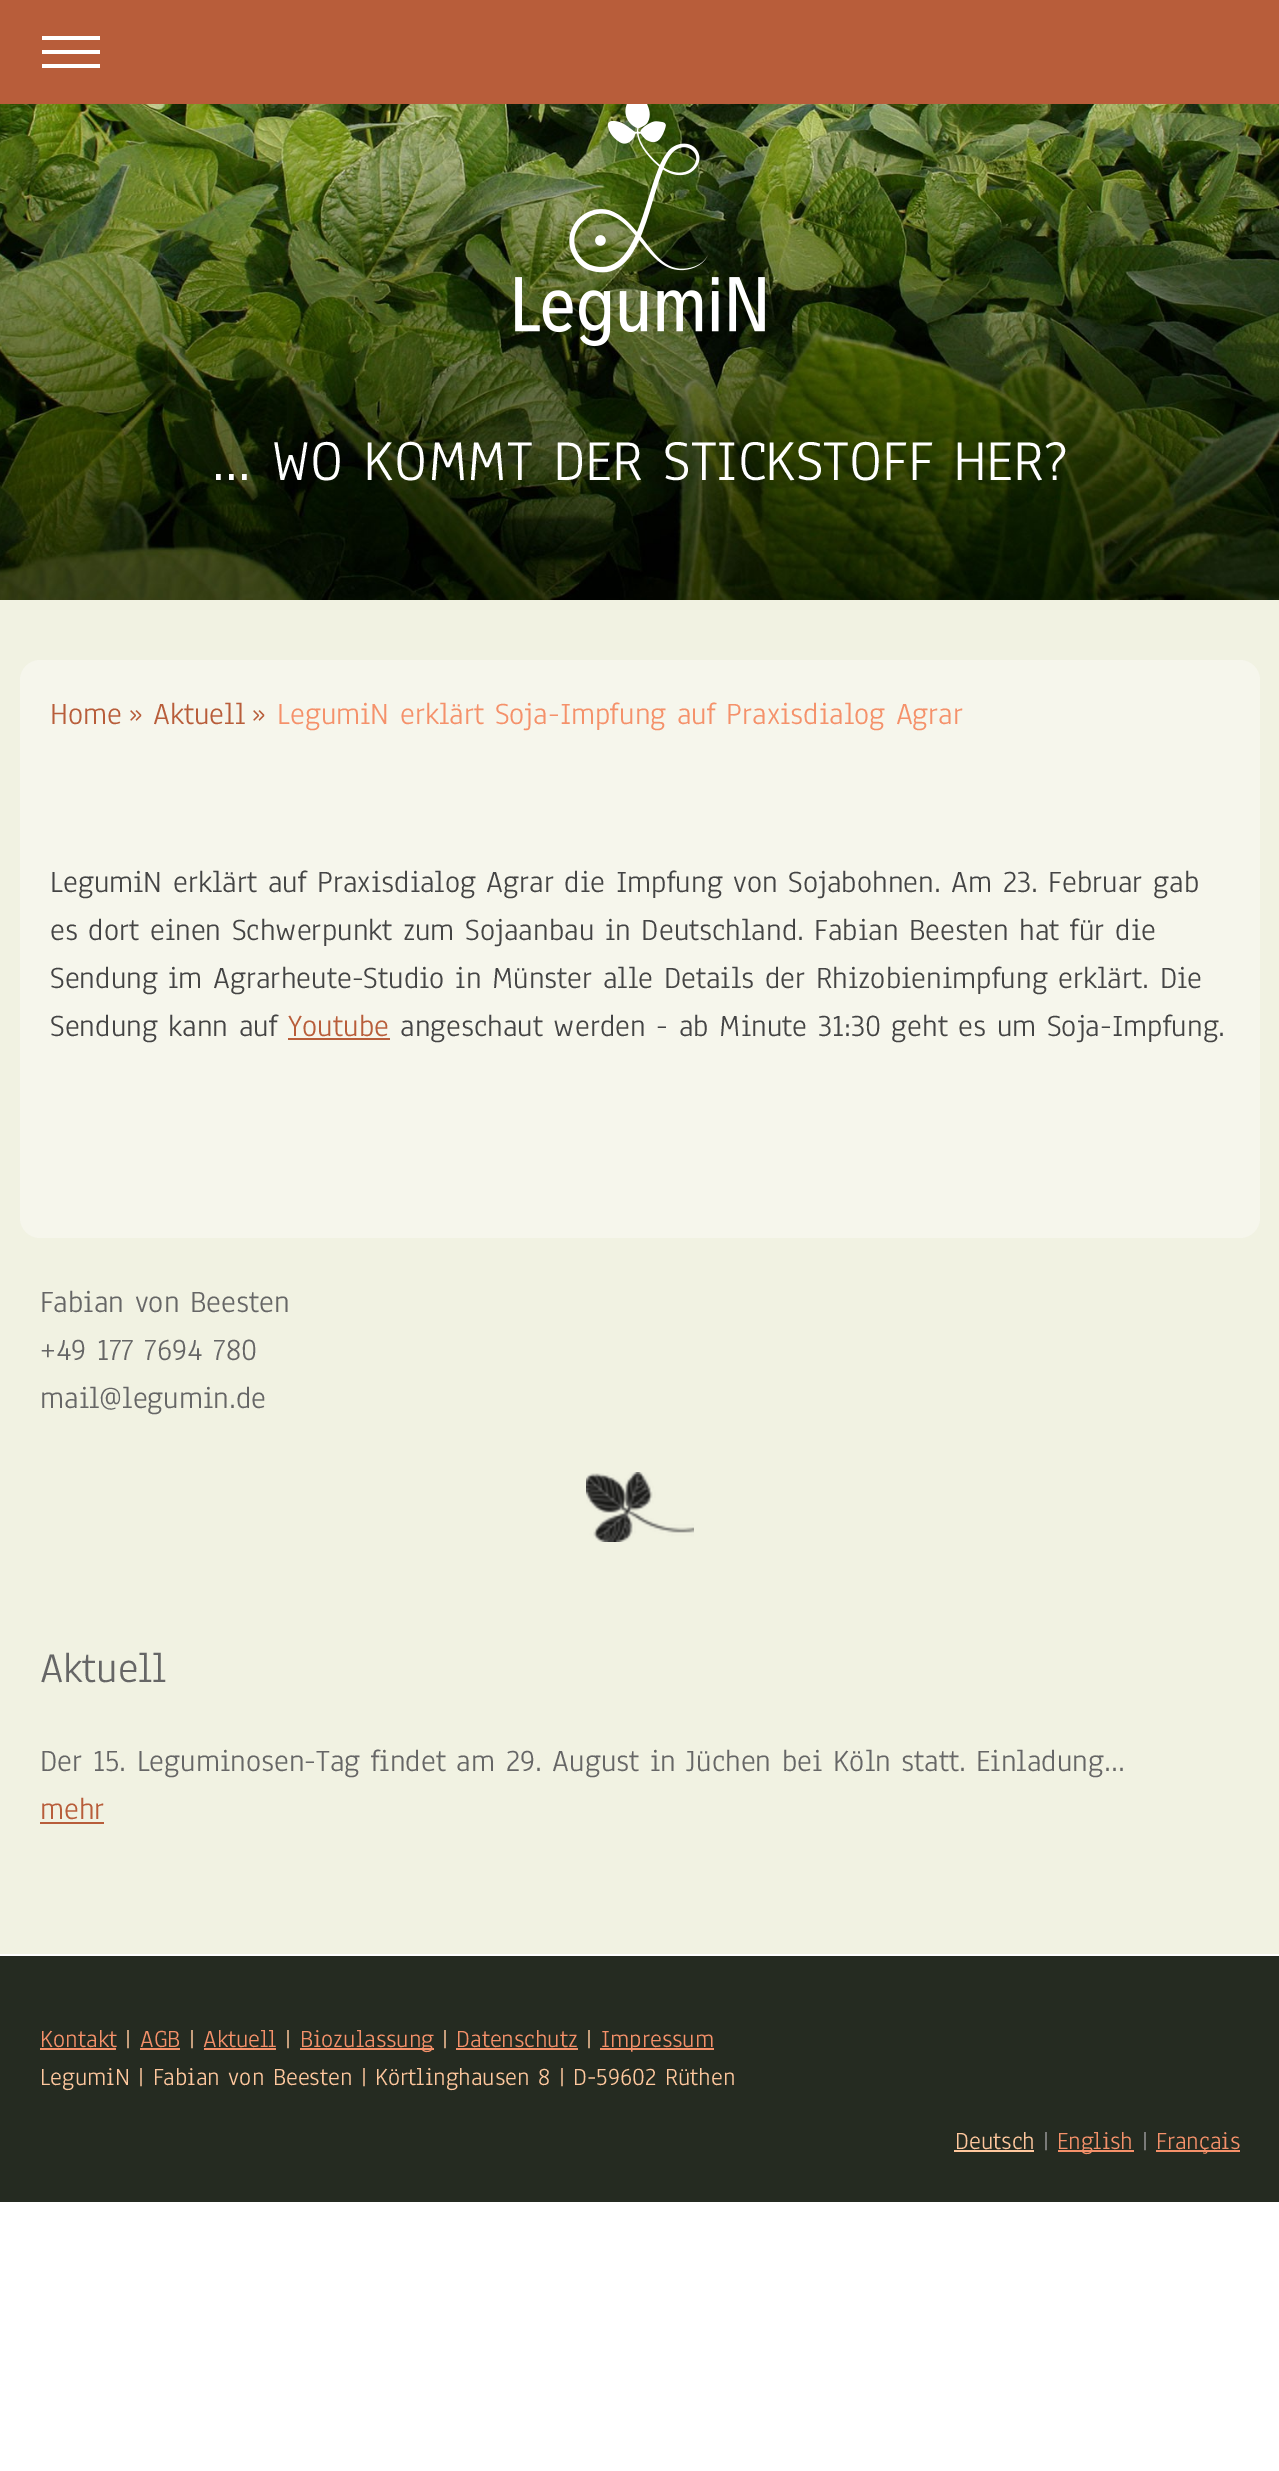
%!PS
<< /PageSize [1279 2471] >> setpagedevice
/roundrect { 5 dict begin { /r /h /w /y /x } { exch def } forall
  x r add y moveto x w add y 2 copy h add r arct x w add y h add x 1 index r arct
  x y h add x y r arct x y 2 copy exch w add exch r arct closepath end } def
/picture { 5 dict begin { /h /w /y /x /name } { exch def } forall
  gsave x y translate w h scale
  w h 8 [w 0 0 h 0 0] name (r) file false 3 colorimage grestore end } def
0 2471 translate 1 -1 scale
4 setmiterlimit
1 setgray
0 0 1279 2471 rectfill
(img1.rgb) 0 104 1279 496 picture
0.722 0.365 0.227 setrgbcolor
0 0 1279 104 rectfill
1 setgray
42 50 58 4 rectfill
42 36 58 4 rectfill
42 64 58 4 rectfill
(img2.rgb) 515 104 250 243 picture
/Anaheim-Regular [60 0 0 -60 0 0] selectfont
212 480 moveto (... WO KOMMT DER STICKSTOFF HER?) show
0.945 0.949 0.886 setrgbcolor
0 600 1279 1354 rectfill
0.965 0.965 0.925 setrgbcolor
20 660 1240 578 20 roundrect fill
/Anaheim-Regular [32 0 0 -32 0 0] selectfont
0.722 0.365 0.227 setrgbcolor
50 724 moveto (Home) show
128 724 moveto (») show
153 724 moveto (Aktuell) show
251 724 moveto (») show
0.961 0.569 0.416 setrgbcolor
277 724 moveto (LegumiN erklärt Soja-Impfung auf Praxisdialog Agrar) show
0.267 setgray
50 892 moveto (LegumiN erklärt auf Praxisdialog Agrar die Impfung von Sojabohnen. Am 23. Februar gab) show
50 940 moveto (es dort einen Schwerpunkt zum Sojaanbau in Deutschland. Fabian Beesten hat für die) show
50 988 moveto (Sendung im Agrarheute-Studio in Münster alle Details der Rhizobienimpfung erklärt. Die) show
50 1036 moveto (Sendung kann auf) show
0.722 0.365 0.227 setrgbcolor
288 1036 moveto (Youtube) show
288 1038 102 2 rectfill
0.267 setgray
400 1036 moveto (angeschaut werden - ab Minute 31:30 geht es um Soja-Impfung.) show
0.4 setgray
40 1312 moveto (Fabian von Beesten) show
40 1360 moveto (+49 177 7694 780) show
40 1408 moveto (mail@legumin.de) show
(img3.rgb) 586 1472 108 70 picture
/Anaheim-Regular [44 0 0 -44 0 0] selectfont
40 1682 moveto (Aktuell) show
/Anaheim-Regular [32 0 0 -32 0 0] selectfont
40 1771 moveto (Der 15. Leguminosen-Tag findet am 29. August in Jüchen bei Köln statt. Einladung…) show
0.722 0.365 0.227 setrgbcolor
40 1819 moveto (mehr) show
40 1822 64 2 rectfill
0.145 0.169 0.129 setrgbcolor
0 1956 1279 246 rectfill
/Anaheim-Regular [25.6 0 0 -25.6 0 0] selectfont
0.961 0.569 0.416 setrgbcolor
40 2047 moveto (Kontakt) show
40 2048 76 2 rectfill
1 0.784 0.62 setrgbcolor
125 2047 moveto (|) show
0.961 0.569 0.416 setrgbcolor
140 2047 moveto (AGB) show
140 2048 40 2 rectfill
1 0.784 0.62 setrgbcolor
189 2047 moveto (|) show
0.961 0.569 0.416 setrgbcolor
203 2047 moveto (Aktuell) show
204 2048 72 2 rectfill
1 0.784 0.62 setrgbcolor
285 2047 moveto (|) show
0.961 0.569 0.416 setrgbcolor
300 2048 134 2 rectfill
300 2047 moveto (Biozulassung) show
1 0.784 0.62 setrgbcolor
442 2047 moveto (|) show
0.961 0.569 0.416 setrgbcolor
456 2047 moveto (Datenschutz) show
456 2048 122 2 rectfill
1 0.784 0.62 setrgbcolor
586 2047 moveto (|) show
0.961 0.569 0.416 setrgbcolor
600 2048 114 2 rectfill
601 2047 moveto (Impressum) show
1 0.784 0.62 setrgbcolor
40 2085 moveto (LegumiN | Fabian von Beesten | Körtlinghausen 8 | D-59602 Rüthen) show
955 2149 moveto (Deutsch) show
954 2150 80 2 rectfill
0.6 setgray
1043 2149 moveto (|) show
0.961 0.569 0.416 setrgbcolor
1058 2150 76 2 rectfill
1057 2149 moveto (English) show
0.6 setgray
1142 2149 moveto (|) show
0.961 0.569 0.416 setrgbcolor
1156 2150 84 2 rectfill
1156 2149 moveto (Français) show
showpage
